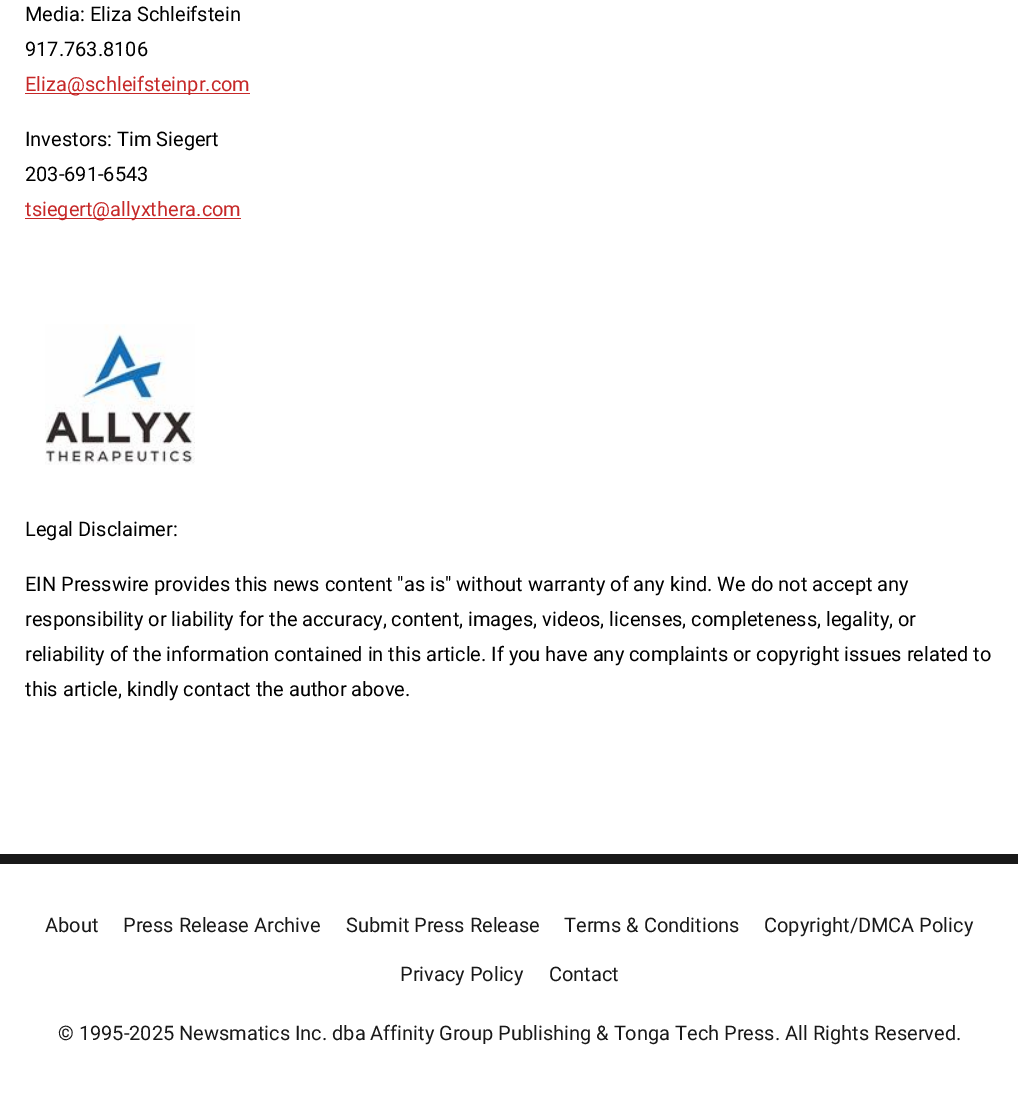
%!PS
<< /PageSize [1018 1096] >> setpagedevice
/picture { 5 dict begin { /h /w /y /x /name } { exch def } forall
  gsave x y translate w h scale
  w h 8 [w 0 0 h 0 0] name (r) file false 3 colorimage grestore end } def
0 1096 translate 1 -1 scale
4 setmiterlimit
1 setgray
0 0 1018 1096 rectfill
/Roboto-Regular [20 0 0 -20 0 0] selectfont
0 setgray
25 21 moveto (Media: Eliza Schleifstein) show
25 56 moveto (917.763.8106) show
0.776 0.157 0.157 setrgbcolor
25 93 225 1 rectfill
25 91 moveto (Eliza@schleifsteinpr.com) show
0 setgray
25 146 moveto (Investors: Tim Siegert) show
25 181 moveto (203-691-6543) show
0.776 0.157 0.157 setrgbcolor
25 218 216 1 rectfill
25 216 moveto (tsiegert@allyxthera.com) show
(img1.rgb) 45 324 150 141 picture
0 setgray
25 536 moveto (Legal Disclaimer:) show
25 591 moveto (EIN Presswire provides this news content "as is" without warranty of any kind. We do not accept any) show
25 626 moveto (responsibility or liability for the accuracy, content, images, videos, licenses, completeness, legality, or) show
25 661 moveto (reliability of the information contained in this) show
426 661 moveto (article. If you have any complaints or copyright issues related to) show
25 696 moveto (this article, kindly contact the author above.) show
0.098 setgray
0 854 1018 10 rectfill
45 932 moveto (About) show
123 932 moveto (Press Release Archive) show
346 932 moveto (Submit Press Release) show
564 932 moveto (Terms & Conditions) show
764 932 moveto (Copyright/DMCA Policy) show
400 981 moveto (Privacy Policy) show
549 981 moveto (Contact) show
58 1040 moveto (© 1995-2025 Newsmatics Inc. dba Affinity Group Publishing & Tonga Tech Press. All Rights Reserved.) show
showpage
